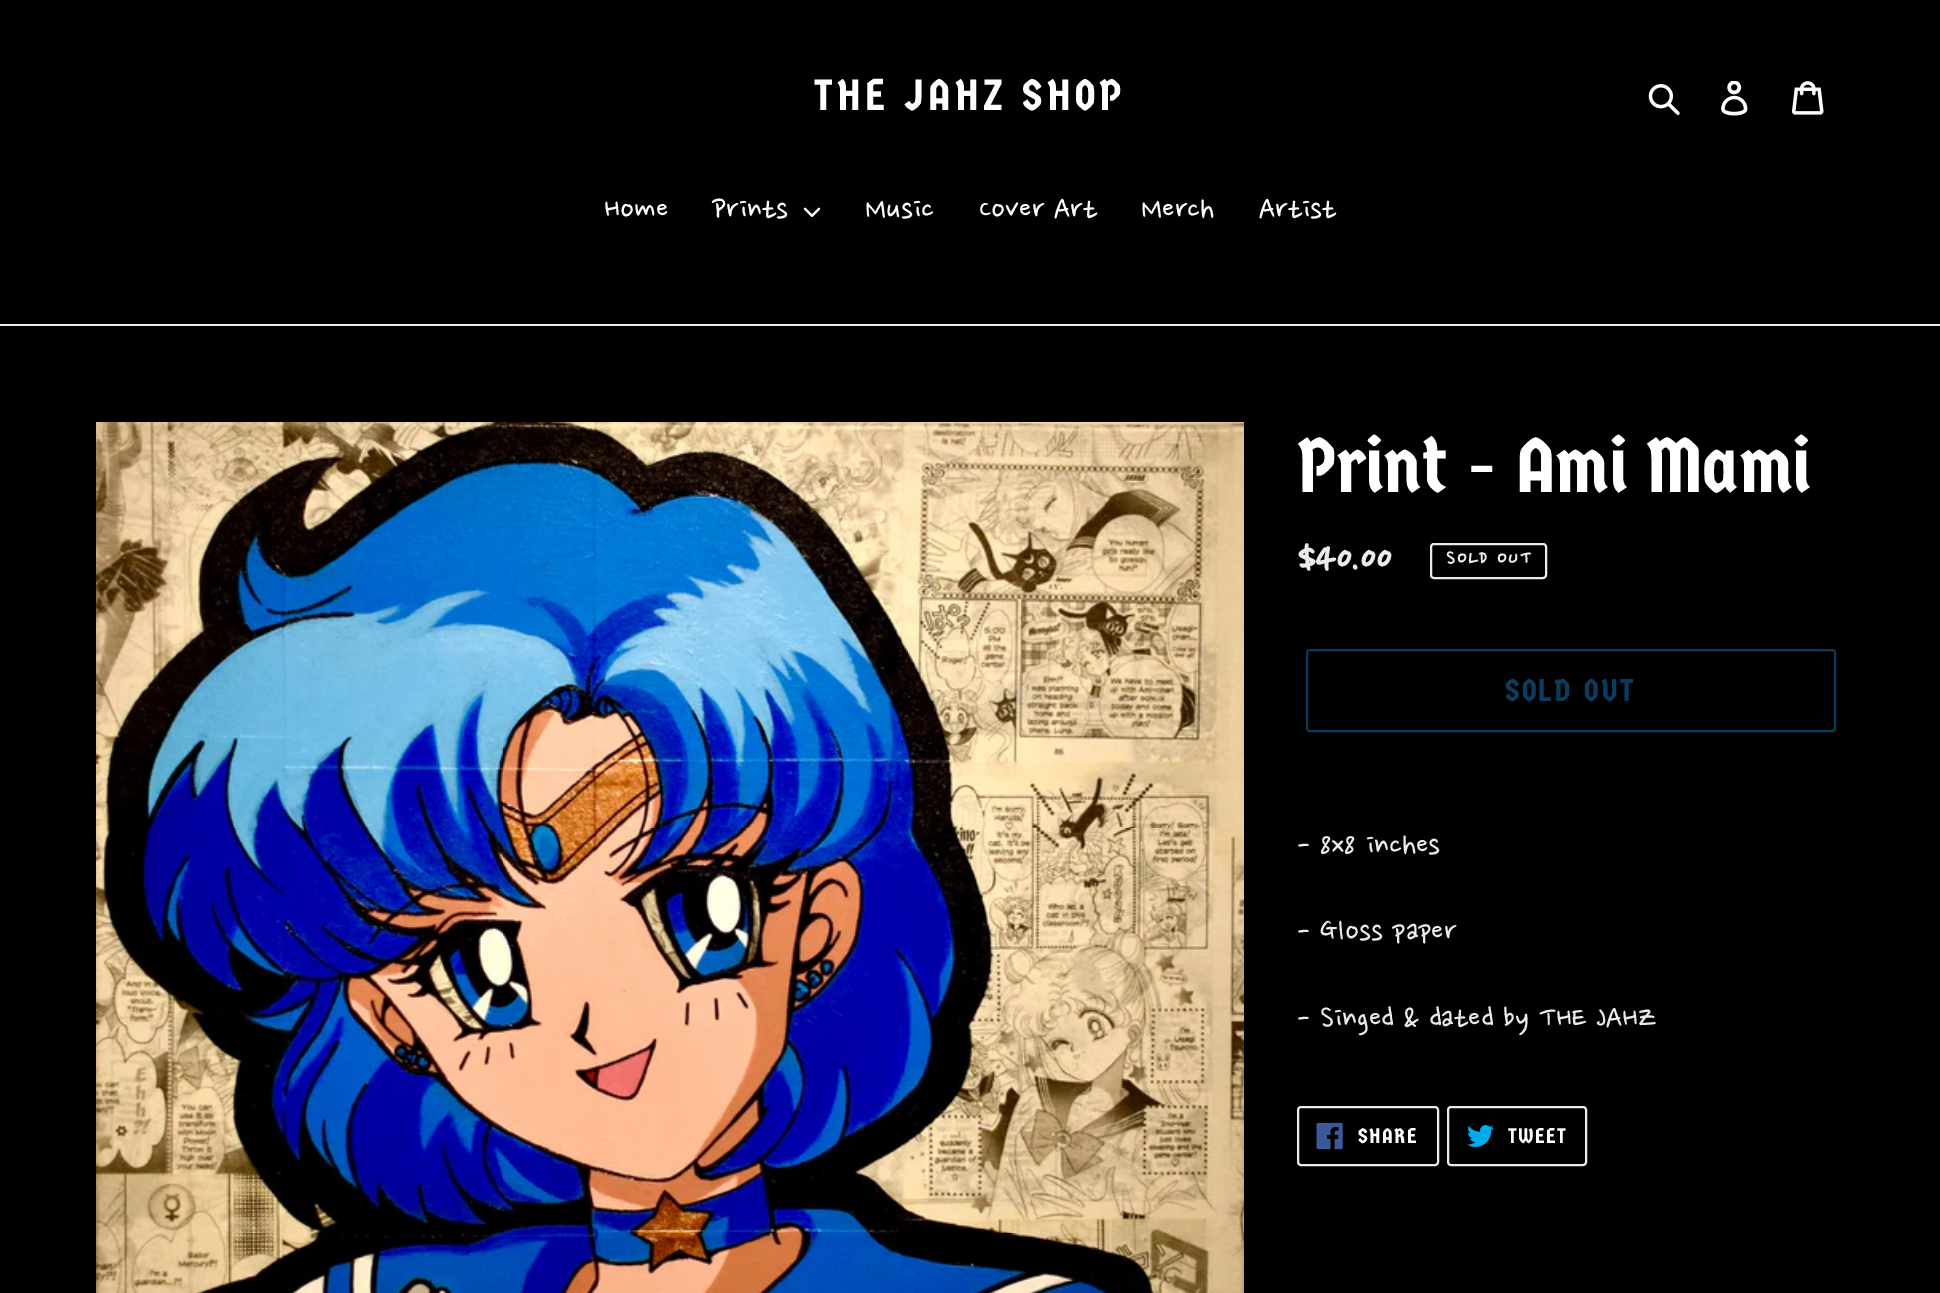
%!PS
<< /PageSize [1940 1293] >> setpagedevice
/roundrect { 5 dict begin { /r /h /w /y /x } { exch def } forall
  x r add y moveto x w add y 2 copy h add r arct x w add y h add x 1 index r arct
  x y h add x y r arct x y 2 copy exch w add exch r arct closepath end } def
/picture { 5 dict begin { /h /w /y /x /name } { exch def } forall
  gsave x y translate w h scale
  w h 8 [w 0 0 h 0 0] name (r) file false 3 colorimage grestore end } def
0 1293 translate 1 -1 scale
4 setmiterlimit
0 setgray
0 0 1940 1293 rectfill
/GermaniaOne-Regular [43.75 0 0 -43.75 0 0] selectfont
1 setgray
814 110 moveto 4.4 0 (THE JAHZ SHOP) ashow
(img1.rgb) 1648 84 32 31 picture
(img2.rgb) 1721 81 27 35 picture
(img3.rgb) 1792 81 32 34 picture
0.922 setgray
0 324 1940 2 rectfill
/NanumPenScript-Regular [35 0 0 -35 0 0] selectfont
1 setgray
604 221 moveto (Home) show
712 221 moveto (Prints) show
(img4.rgb) 803 207 18 10 picture
865 221 moveto (Music) show
979 221 moveto (Cover Art) show
1141 221 moveto (Merch) show
1259 221 moveto (Artist) show
(img5.rgb) 96 422 1148 871 picture
/GermaniaOne-Regular [77 0 0 -77 0 0] selectfont
1297 492 moveto (Print - Ami Mami) show
/NanumPenScript-Bold [43.75 0 0 -43.75 0 0] selectfont
0.922 setgray
1297 574 moveto ($40.00) show
2 setlinewidth
1431 544 115 34 3 roundrect stroke
/NanumPenScript-Bold [22 0 0 -22 0 0] selectfont
1446 566 moveto 1.75 0 (SOLD OUT) ashow
0.047 0.235 0.365 setrgbcolor
1307 650 528 81 3 roundrect stroke
/GermaniaOne-Regular [31.5 0 0 -31.5 0 0] selectfont
1505 701 moveto 2.5 0 (SOLD OUT) ashow
/NanumPenScript-Regular [35 0 0 -35 0 0] selectfont
0.922 setgray
1297 857 moveto (- 8x8 inches) show
1297 943 moveto (- Gloss paper) show
1297 1030 moveto (- Singed & dated by THE JAHZ) show
1298 1107 140 58 3 roundrect stroke
(img6.rgb) 1316 1122 27 28 picture
/GermaniaOne-Regular [21 0 0 -21 0 0] selectfont
1 setgray
1358 1143 moveto 1.5 0 (SHARE) ashow
0.922 setgray
1448 1107 138 58 3 roundrect stroke
(img7.rgb) 1467 1125 27 22 picture
1 setgray
1508 1143 moveto 1.5 0 (TWEET) ashow
showpage
